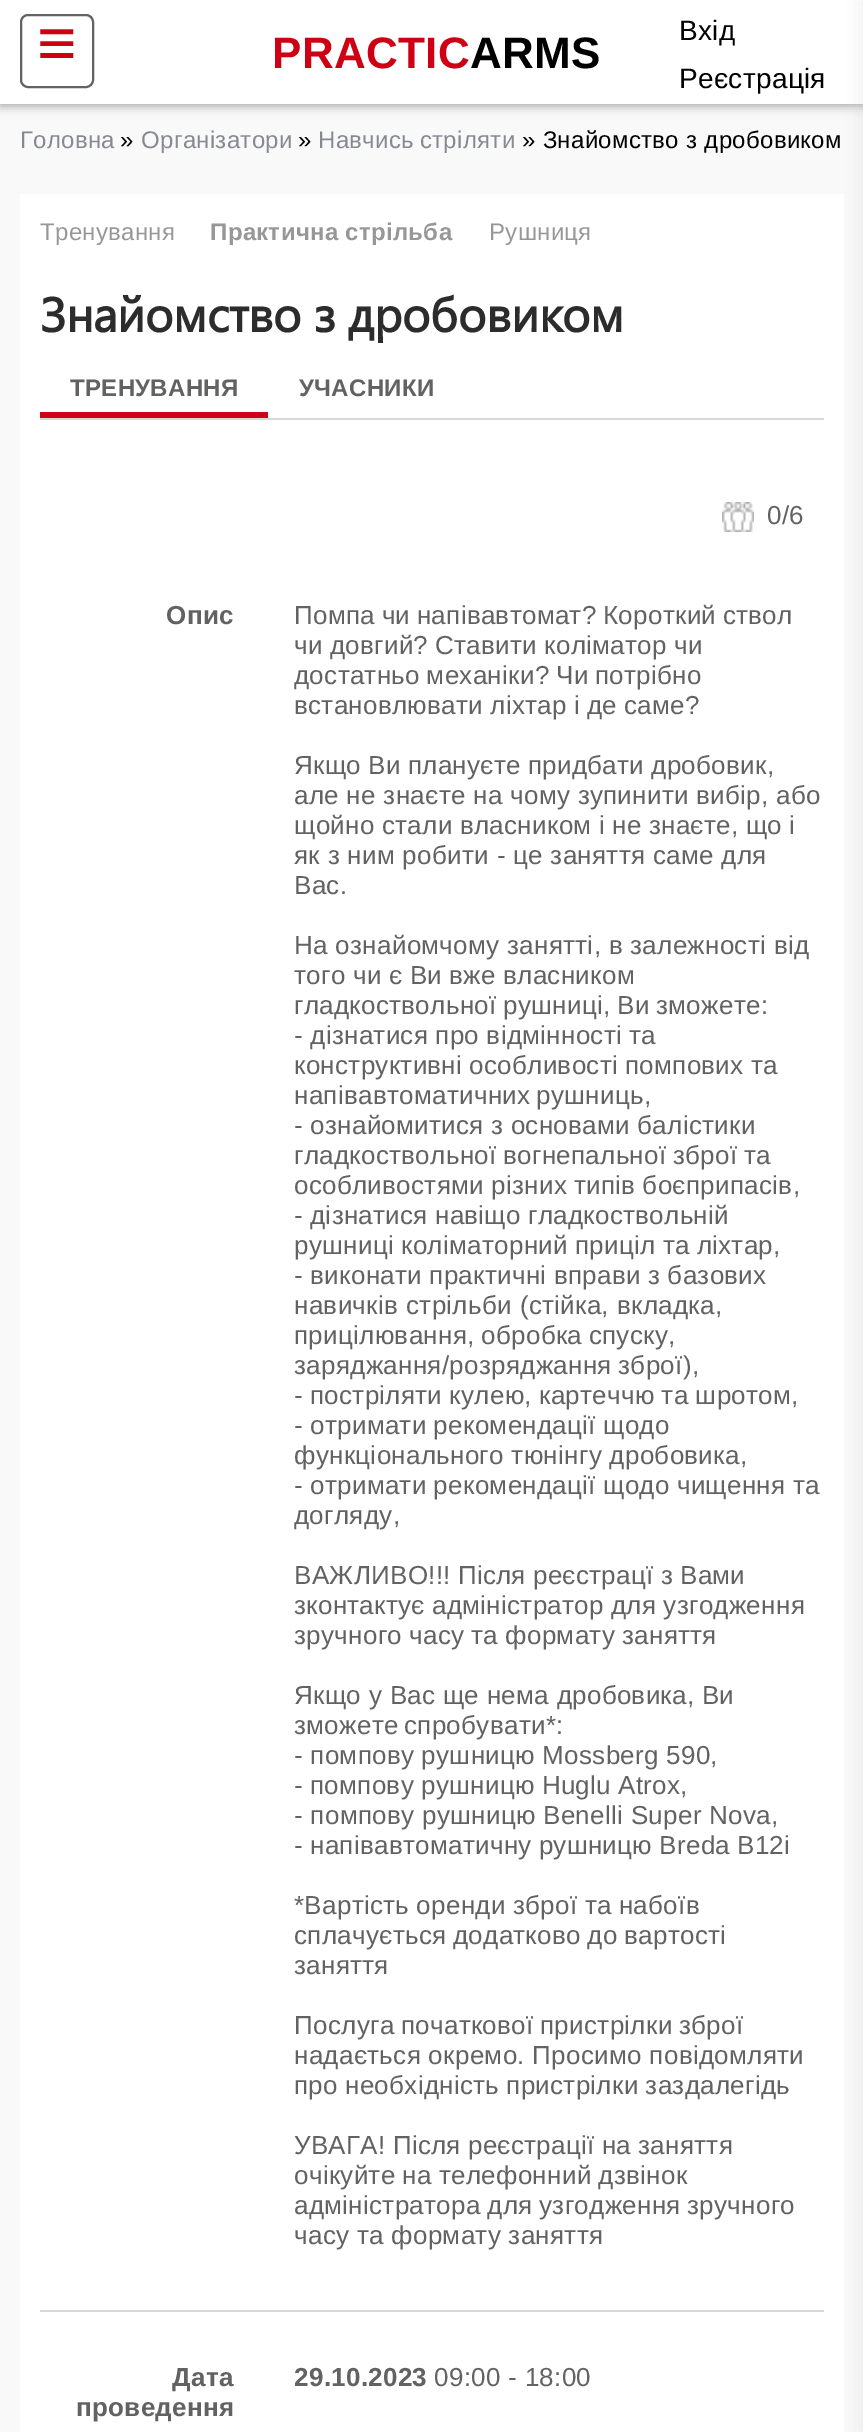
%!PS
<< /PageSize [863 2432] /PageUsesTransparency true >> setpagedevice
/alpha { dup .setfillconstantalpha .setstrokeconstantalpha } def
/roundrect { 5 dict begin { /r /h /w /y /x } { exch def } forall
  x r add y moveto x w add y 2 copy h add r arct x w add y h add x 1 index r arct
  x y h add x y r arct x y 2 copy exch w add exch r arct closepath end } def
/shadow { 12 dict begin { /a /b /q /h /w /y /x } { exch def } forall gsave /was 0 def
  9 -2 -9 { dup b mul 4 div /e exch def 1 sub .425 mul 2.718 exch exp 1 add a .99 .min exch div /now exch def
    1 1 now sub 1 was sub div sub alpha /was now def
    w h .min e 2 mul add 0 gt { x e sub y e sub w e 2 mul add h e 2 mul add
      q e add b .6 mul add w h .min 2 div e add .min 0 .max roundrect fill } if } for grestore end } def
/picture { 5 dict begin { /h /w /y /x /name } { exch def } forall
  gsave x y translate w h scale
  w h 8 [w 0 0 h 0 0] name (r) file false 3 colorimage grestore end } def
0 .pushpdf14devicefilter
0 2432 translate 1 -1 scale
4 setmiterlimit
0.976 setgray
0 0 863 2432 rectfill
0.384 setgray
0 2 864 104 0 5 0.6 shadow
1 setgray
0 0 863 104 rectfill
0.384 setgray
2 setlinewidth
21 15 72 72 7 roundrect stroke
/LiberationSans-Regular [68 0 0 -68 0 0] selectfont
0.804 0 0.078 setrgbcolor
37 66 moveto 0.3 0 (≡) ashow
/LiberationSans-Bold [44 0 0 -44 0 0] selectfont
272 68 moveto 0.3 0 (PRACTIC) ashow
0 setgray
470 68 moveto 0.3 0 (ARMS) ashow
/LiberationSans-Regular [28 0 0 -28 0 0] selectfont
679 40 moveto 0.3 0 (Вхід) ashow
679 88 moveto 0.3 0 (Реєстрація) ashow
/LiberationSans-Regular [24 0 0 -24 0 0] selectfont
0.522 0.537 0.573 setrgbcolor
20 148 moveto 0.3 0 (Головна) ashow
0 setgray
120 148 moveto 0.3 0 (») ashow
0.522 0.537 0.573 setrgbcolor
141 148 moveto 0.3 0 (Організатори) ashow
0 setgray
298 148 moveto 0.3 0 (») ashow
0.522 0.537 0.573 setrgbcolor
318 148 moveto -1 0 32 0.3 0 (Навчись стріляти) awidthshow
0 setgray
522 148 moveto 0.3 0 (» Знайомство з дробовиком) ashow
1 setgray
20 194 824 2238 rectfill
0.592 setgray
40 240 moveto 0.3 0 (Тренування) ashow
/LiberationSans-Bold [24 0 0 -24 0 0] selectfont
210 240 moveto 0.3 0 (Практична стрільба) ashow
/LiberationSans-Regular [24 0 0 -24 0 0] selectfont
489 240 moveto 0.3 0 (Рушниця) ashow
/SegoeUI-Bold [48 0 0 -48 0 0] selectfont
0.173 setgray
40 332 moveto -0.2 0 (Знайомство з дробовиком) ashow
0.847 setgray
40 418 784 2 rectfill
0.812 0.008 0.106 setrgbcolor
40 412 228 6 rectfill
/LiberationSans-Bold [24 0 0 -24 0 0] selectfont
0.384 setgray
70 396 moveto 0.3 0 (ТРЕНУВАННЯ) ashow
299 396 moveto 0.3 0 (УЧАСНИКИ) ashow
(img1.rgb) 722 502 32 30 picture
/LiberationSans-Regular [26 0 0 -26 0 0] selectfont
767 524 moveto 0.3 0 (0/6) ashow
/LiberationSans-Bold [26 0 0 -26 0 0] selectfont
166 624 moveto 0.3 0 (Опис) ashow
/LiberationSans-Regular [26 0 0 -26 0 0] selectfont
294 624 moveto -1 0 32 0.3 0 (Помпа чи напівавтомат? Короткий ствол) awidthshow
294 654 moveto -0.5 0 32 0.3 0 (чи довгий? Ставити коліматор чи) awidthshow
294 684 moveto -1 0 32 0.3 0 (достатньо механіки? Чи потрібно) awidthshow
294 714 moveto -0.5 0 32 0.3 0 (встановлювати ліхтар і де саме?) awidthshow
294 774 moveto -0.5 0 32 0.3 0 (Якщо Ви плануєте придбати дробовик,) awidthshow
294 804 moveto 0.3 0 (але не знаєте на чому зупинити вибір, або) ashow
294 834 moveto -0.25 0 32 0.3 0 (щойно стали власником і не знаєте, що і) awidthshow
294 864 moveto 0.3 0 (як з ним робити - це заняття саме для) ashow
294 894 moveto 0.3 0 (Вас.) ashow
294 954 moveto 0.3 0 (На ознайомчому занятті, в залежності від) ashow
294 984 moveto -0.25 0 32 0.3 0 (того чи є Ви вже власником) awidthshow
294 1014 moveto -1 0 32 0.3 0 (гладкоствольної рушниці, Ви зможете:) awidthshow
294 1044 moveto -0.25 0 32 0.3 0 (- дізнатися про відмінності та) awidthshow
294 1074 moveto -0.5 0 32 0.3 0 (конструктивні особливості помпових та) awidthshow
294 1104 moveto -2 0 32 0.3 0 (напівавтоматичних рушниць,) awidthshow
294 1134 moveto -0.25 0 32 0.3 0 (- ознайомитися з основами балістики) awidthshow
294 1164 moveto -1 0 32 0.3 0 (гладкоствольної вогнепальної зброї та) awidthshow
294 1194 moveto -0.5 0 32 0.3 0 (особливостями різних типів боєприпасів,) awidthshow
294 1224 moveto -0.5 0 32 0.3 0 (- дізнатися навіщо гладкоствольній) awidthshow
294 1254 moveto -0.5 0 32 0.3 0 (рушниці коліматорний приціл та ліхтар,) awidthshow
294 1284 moveto -0.25 0 32 0.3 0 (- виконати практичні вправи з базових) awidthshow
294 1314 moveto 0.5 0 32 0.3 0 (навичків стрільби \(стійка, вкладка,) awidthshow
294 1344 moveto -1 0 32 0.3 0 (прицілювання, обробка спуску,) awidthshow
294 1374 moveto -1 0 32 0.3 0 (заряджання/розряджання зброї\),) awidthshow
294 1404 moveto -0.5 0 32 0.3 0 (- постріляти кулею, картеччю та шротом,) awidthshow
294 1434 moveto -0.5 0 32 0.3 0 (- отримати рекомендації щодо) awidthshow
294 1464 moveto 0.3 0 (функціонального тюнінгу дробовика,) ashow
294 1494 moveto -0.5 0 32 0.3 0 (- отримати рекомендації щодо чищення та) awidthshow
294 1524 moveto 0.3 0 (догляду,) ashow
294 1584 moveto -0.5 0 32 0.3 0 (ВАЖЛИВО!!! Після реєстрацї з Вами) awidthshow
294 1614 moveto -0.5 0 32 0.3 0 (зконтактує адміністратор для узгодження) awidthshow
294 1644 moveto -0.5 0 32 0.3 0 (зручного часу та формату заняття) awidthshow
294 1704 moveto 0.3 0 (Якщо у Вас ще нема дробовика, Ви) ashow
294 1734 moveto -2 0 32 0.3 0 (зможете спробувати*:) awidthshow
294 1764 moveto -0.25 0 32 0.3 0 (- помпову рушницю Mossberg 590,) awidthshow
294 1794 moveto -0.5 0 32 0.3 0 (- помпову рушницю Huglu Atrox,) awidthshow
294 1824 moveto 0.3 0 (- помпову рушницю Benelli Super Nova,) ashow
294 1854 moveto -0.5 0 32 0.3 0 (- напівавтоматичну рушницю Breda B12i) awidthshow
294 1914 moveto -0.25 0 32 0.3 0 (*Вартість оренди зброї та набоїв) awidthshow
294 1944 moveto -1 0 32 0.3 0 (сплачується додатково до вартості) awidthshow
294 1974 moveto 0.3 0 (заняття) ashow
294 2034 moveto -1 0 32 0.3 0 (Послуга початкової пристрілки зброї) awidthshow
294 2064 moveto 0.3 0 (надається окремо. Просимо повідомляти) ashow
294 2094 moveto -0.5 0 32 0.3 0 (про необхідність пристрілки заздалегідь) awidthshow
294 2154 moveto -0.5 0 32 0.3 0 (УВАГА! Після реєстрації на заняття) awidthshow
294 2184 moveto -0.5 0 32 0.3 0 (очікуйте на телефонний дзвінок) awidthshow
294 2214 moveto -1 0 32 0.3 0 (адміністратора для узгодження зручного) awidthshow
294 2244 moveto 0.3 0 (часу та формату заняття) ashow
0.847 setgray
40 2310 784 2 rectfill
/LiberationSans-Bold [26 0 0 -26 0 0] selectfont
0.384 setgray
172 2386 moveto 0.3 0 (Дата) ashow
76 2416 moveto 0.3 0 (проведення) ashow
294 2386 moveto 0.3 0 (29.10.2023) ashow
/LiberationSans-Regular [26 0 0 -26 0 0] selectfont
434 2386 moveto 0.3 0 (09:00 - 18:00) ashow
0.749 setgray
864 0 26 2432 0 9 0.36 shadow
.poppdf14devicefilter showpage
